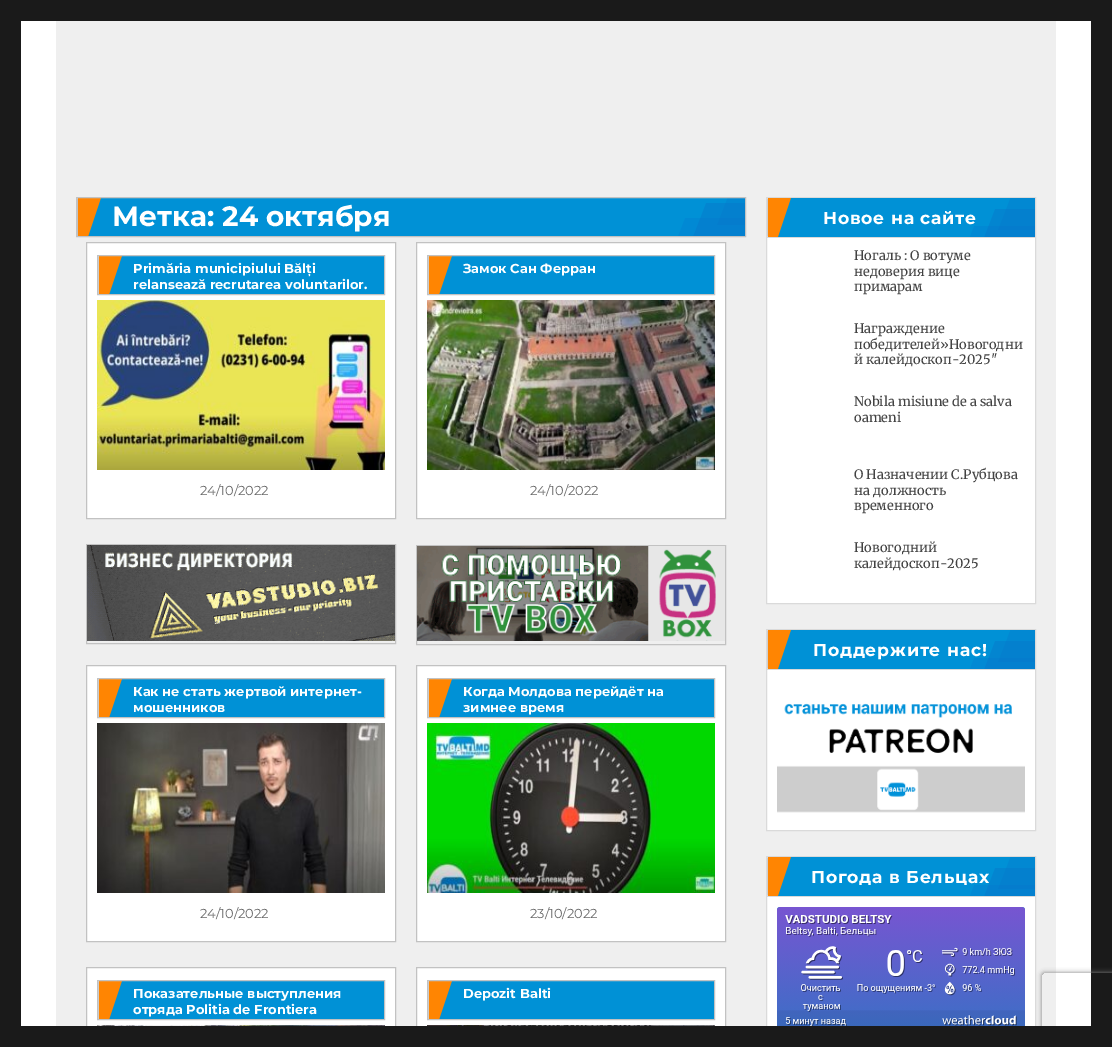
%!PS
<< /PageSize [1112 1047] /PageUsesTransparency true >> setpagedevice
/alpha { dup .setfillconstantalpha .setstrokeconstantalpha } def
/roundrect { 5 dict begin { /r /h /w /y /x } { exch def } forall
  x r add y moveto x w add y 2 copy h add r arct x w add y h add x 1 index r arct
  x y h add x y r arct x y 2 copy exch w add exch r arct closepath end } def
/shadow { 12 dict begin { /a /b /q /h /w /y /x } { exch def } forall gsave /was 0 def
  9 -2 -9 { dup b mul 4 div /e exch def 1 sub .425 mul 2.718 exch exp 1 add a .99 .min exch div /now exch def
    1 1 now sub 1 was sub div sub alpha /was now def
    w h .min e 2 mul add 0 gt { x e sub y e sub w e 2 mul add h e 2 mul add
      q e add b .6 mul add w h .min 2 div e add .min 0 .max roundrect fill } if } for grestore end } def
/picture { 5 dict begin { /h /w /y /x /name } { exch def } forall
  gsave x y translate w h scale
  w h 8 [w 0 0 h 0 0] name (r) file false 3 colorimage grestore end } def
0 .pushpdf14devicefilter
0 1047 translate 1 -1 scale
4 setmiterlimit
0.102 setgray
0 0 1112 1047 rectfill
1 setgray
21 21 1070 1005 rectfill
0.937 setgray
56 21 1000 1005 rectfill
(img1.rgb) 77 198 668 38 picture
0.761 setgray
76.5 197.5 669 39 rectstroke
/Montserrat-Bold [28 0 0 -28 0 0] selectfont
1 setgray
112 226 moveto (Метка: 24 октября) show
newpath 86.5 242.5 moveto 395.5 242.5 lineto 395.5 518.5 lineto 86.5 518.5 lineto closepath gsave fill grestore
0.761 setgray
stroke
(img2.rgb) 98 256 286 38 picture
97.5 255.5 287 39 rectstroke
/Montserrat-Bold [13 0 0 -13 0 0] selectfont
1 setgray
133 273 moveto (Primăria municipiului Bălți) show
133 289 moveto (relansează recrutarea voluntarilor.) show
(img3.rgb) 97 300 288 170 picture
/Montserrat-Regular [13 0 0 -13 0 0] selectfont
0.408 setgray
200 495 moveto (24/10/2022) show
1 setgray
newpath 416.5 242.5 moveto 725.5 242.5 lineto 725.5 518.5 lineto 416.5 518.5 lineto closepath gsave fill grestore
0.761 setgray
stroke
(img2.rgb) 428 256 286 38 picture
427.5 255.5 287 39 rectstroke
/Montserrat-Bold [13 0 0 -13 0 0] selectfont
1 setgray
463 273 moveto (Замок Сан Ферран) show
(img4.rgb) 427 300 288 170 picture
/Montserrat-Regular [13 0 0 -13 0 0] selectfont
0.408 setgray
530 495 moveto (24/10/2022) show
0.761 setgray
86.5 544.5 309 99 rectstroke
(img5.rgb) 87 545 308 96 picture
416.5 545.5 309 99 rectstroke
(img6.rgb) 417 546 308 95 picture
1 setgray
newpath 86.5 665.5 moveto 395.5 665.5 lineto 395.5 941.5 lineto 86.5 941.5 lineto closepath gsave fill grestore
0.761 setgray
stroke
(img2.rgb) 98 679 286 38 picture
97.5 678.5 287 39 rectstroke
/Montserrat-Bold [13 0 0 -13 0 0] selectfont
1 setgray
133 696 moveto (Как не стать жертвой интернет-) show
133 712 moveto (мошенников) show
(img7.rgb) 97 723 288 170 picture
/Montserrat-Regular [13 0 0 -13 0 0] selectfont
0.408 setgray
200 918 moveto (24/10/2022) show
1 setgray
newpath 416.5 665.5 moveto 725.5 665.5 lineto 725.5 941.5 lineto 416.5 941.5 lineto closepath gsave fill grestore
0.761 setgray
stroke
(img2.rgb) 428 679 286 38 picture
427.5 678.5 287 39 rectstroke
/Montserrat-Bold [13 0 0 -13 0 0] selectfont
1 setgray
463 696 moveto (Когда Молдова перейдёт на) show
463 712 moveto (зимнее время) show
(img8.rgb) 427 723 288 170 picture
/Montserrat-Regular [13 0 0 -13 0 0] selectfont
0.408 setgray
530 918 moveto (23/10/2022) show
1 setgray
87 968 308 58 rectfill
0.761 setgray
86.5 967.5 309 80 rectstroke
(img2.rgb) 98 981 286 38 picture
97.5 980.5 287 39 rectstroke
/Montserrat-Bold [13 0 0 -13 0 0] selectfont
1 setgray
133 998 moveto (Показательные выступления) show
133 1014 moveto (отряда Politia de Frontiera) show
(img9.rgb) 97 1025 288 1 picture
417 968 308 58 rectfill
0.761 setgray
416.5 967.5 309 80 rectstroke
(img2.rgb) 428 981 286 38 picture
427.5 980.5 287 39 rectstroke
1 setgray
463 998 moveto (Depozit Balti) show
(img10.rgb) 427 1025 288 1 picture
newpath 766.5 197.5 moveto 1035.5 197.5 lineto 1035.5 603.5 lineto 766.5 603.5 lineto closepath gsave fill grestore
0.855 setgray
stroke
(img11.rgb) 767 198 268 39 picture
767 237 268 1 rectfill
/Montserrat-Bold [17.25 0 0 -17.25 0 0] selectfont
1 setgray
823 224 moveto 0.75 0 (Новое на сайте) ashow
/Merriweather-Regular [13 0 0 -13 0 0] selectfont
0.259 setgray
854 260 moveto (Ногаль : О вотуме) show
854 276 moveto (недоверия вице) show
854 291 moveto (примарам) show
854 333 moveto (Награждение) show
854 349 moveto (победителей»Новогодни) show
854 364 moveto (й калейдоскоп-2025″) show
854 406 moveto (Nobila misiune de a salva) show
854 422 moveto (oameni) show
854 479 moveto (О Назначении С.Рубцова) show
854 495 moveto (на должность) show
854 510 moveto (временного) show
854 552 moveto (Новогодний) show
854 568 moveto (калейдоскоп-2025) show
1 setgray
newpath 766.5 629.5 moveto 1035.5 629.5 lineto 1035.5 830.5 lineto 766.5 830.5 lineto closepath gsave fill grestore
0.855 setgray
stroke
(img11.rgb) 767 630 268 39 picture
767 669 268 1 rectfill
/Montserrat-Bold [17.25 0 0 -17.25 0 0] selectfont
1 setgray
813 656 moveto 0.75 0 (Поддержите нас!) ashow
(img12.rgb) 777 703 248 110 picture
767 857 268 169 rectfill
0.855 setgray
766.5 856.5 269 185 rectstroke
(img11.rgb) 767 857 268 39 picture
767 896 268 1 rectfill
1 setgray
811 883 moveto 0.75 0 (Погода в Бельцах) ashow
(img13.rgb) 777 907 248 119 picture
gsave
newpath 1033 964 moveto 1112 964 lineto 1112 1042 lineto 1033 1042 lineto closepath 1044 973 moveto 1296 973 lineto 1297 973 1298 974 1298 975 curveto 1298 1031 lineto 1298 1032 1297 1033 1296 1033 curveto 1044 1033 lineto 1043 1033 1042 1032 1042 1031 curveto 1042 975 lineto 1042 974 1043 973 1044 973 curveto closepath eoclip newpath
0.502 setgray
1042 973 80 60 2 2.5 1 shadow
grestore
0.102 setgray
86 1026 1026 21 rectfill
.poppdf14devicefilter showpage
